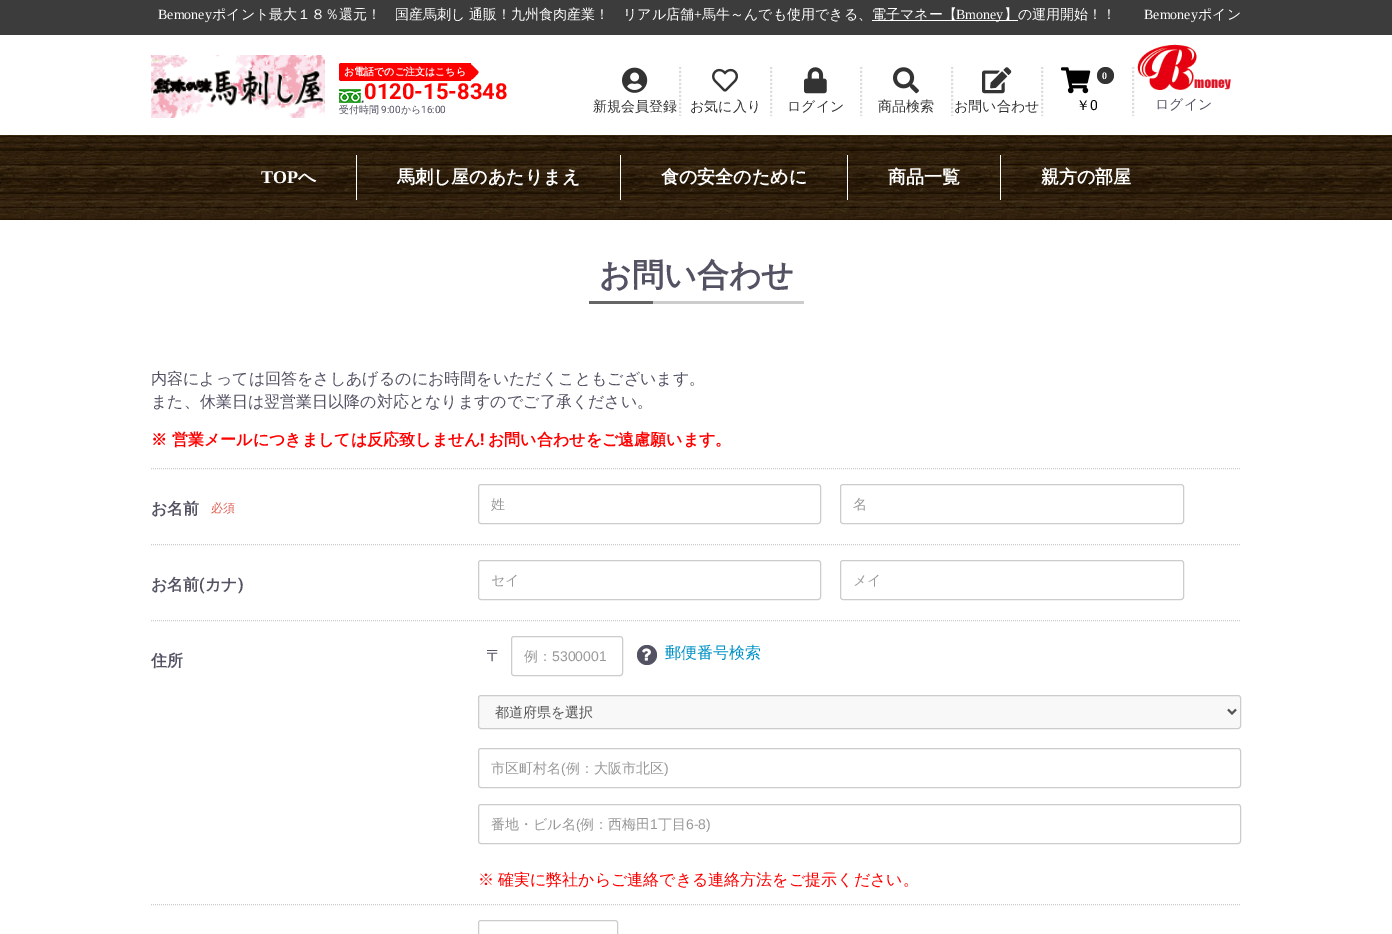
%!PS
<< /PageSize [1392 934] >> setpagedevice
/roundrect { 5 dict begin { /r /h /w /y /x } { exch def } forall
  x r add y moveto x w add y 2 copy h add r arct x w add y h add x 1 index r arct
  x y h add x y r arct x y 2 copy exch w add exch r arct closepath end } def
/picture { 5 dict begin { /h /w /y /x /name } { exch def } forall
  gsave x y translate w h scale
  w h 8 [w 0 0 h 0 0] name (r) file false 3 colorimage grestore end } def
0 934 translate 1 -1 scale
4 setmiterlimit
1 setgray
0 0 1392 934 rectfill
0.235 setgray
0 0 1392 35 rectfill
/LiberationSerif-Regular [14 0 0 -14 0 0] selectfont
1 setgray
158 19 moveto (Bemoney) show
/WenQuanYiZenHei-Medium [14 0 0 -14 0 0] selectfont
212 19 moveto (ポイント最大１８％還元！) show
395 19 moveto -1 0 32 (国産馬刺し 通販！九州食肉産業！) widthshow
623 19 moveto (リアル店舗) show
/LiberationSerif-Regular [14 0 0 -14 0 0] selectfont
694 19 moveto (+) show
/WenQuanYiZenHei-Medium [14 0 0 -14 0 0] selectfont
702 19 moveto (馬牛～んでも使用できる、) show
872 20 146 1 rectfill
872 19 moveto (電子マネー【) show
/LiberationSerif-Regular [14 0 0 -14 0 0] selectfont
956 19 moveto (Bmoney) show
/WenQuanYiZenHei-Medium [14 0 0 -14 0 0] selectfont
1004 19 moveto (】の運用開始！！) show
/LiberationSerif-Regular [14 0 0 -14 0 0] selectfont
1144 19 moveto (Bemoney) show
/WenQuanYiZenHei-Medium [14 0 0 -14 0 0] selectfont
1198 19 moveto (ポイン) show
(img1.rgb) 151 55 174 63 picture
1 0 0 setrgbcolor
newpath 341 63 moveto 471 63 lineto 471 81 lineto 341 81 lineto 340 81 339 80 339 79 curveto 339 65 lineto 339 64 340 63 341 63 curveto closepath fill
newpath 472 65 moveto 477 70 lineto 479.5 72.5 478.5 73 476 75.5 curveto 471 80.5 471.5 81.5 466.5 76.5 curveto 463 72.5 461.5 72.5 465.5 69 curveto 467 67.5 470 63 472 65 curveto closepath fill
/WenQuanYiZenHei-Bold [10 0 0 -10 0 0] selectfont
1 setgray
344 75 moveto (お電話でのご注文はこちら) show
(img2.rgb) 339 89 25 14 picture
/Roboto-Bold [22 0 0 -22 0 0] selectfont
1 0 0 setrgbcolor
364 99 moveto (0120-15-8348) show
/WenQuanYiZenHei-Medium [10 0 0 -10 0 0] selectfont
0.322 0.322 0.388 setrgbcolor
339 113 moveto (受付時間) show
/Roboto-Regular [10 0 0 -10 0 0] selectfont
381 113 moveto (9:00) show
/WenQuanYiZenHei-Medium [10 0 0 -10 0 0] selectfont
401 113 moveto (から) show
/Roboto-Regular [10 0 0 -10 0 0] selectfont
421 113 moveto (16:00) show
(img3.rgb) 622 67 26 26 picture
/WenQuanYiZenHei-Medium [14 0 0 -14 0 0] selectfont
0.2 setgray
593 111 moveto (新規会員登録) show
0.867 setgray
2 setlinewidth
[2 2] 0 setdash
newpath 680 67 moveto 680 116 lineto stroke
(img4.rgb) 712 68 26 24 picture
0.2 setgray
690 111 moveto (お気に入り) show
0.867 setgray
newpath 771 67 moveto 771 116 lineto stroke
(img5.rgb) 804 67 23 27 picture
0.2 setgray
787 111 moveto (ログイン) show
0.867 setgray
newpath 861 67 moveto 861 116 lineto stroke
(img6.rgb) 893 67 26 27 picture
0.2 setgray
878 111 moveto (商品検索) show
0.867 setgray
newpath 952 67 moveto 952 116 lineto stroke
(img7.rgb) 982 67 30 27 picture
0.2 setgray
954 111 moveto (お問い合わせ) show
0.867 setgray
newpath 1042 67 moveto 1042 116 lineto stroke
(img8.rgb) 1061 67 30 27 picture
0.2 setgray
newpath 1105.5 75.5 8.5 0 360 arc closepath fill
/LiberationSerif-Bold [10 0 0 -10 0 0] selectfont
1 setgray
1102 79 moveto (0) show
/WenQuanYiZenHei-Medium [14 0 0 -14 0 0] selectfont
0 setgray
1076 110 moveto (￥) show
/Roboto-Regular [14 0 0 -14 0 0] selectfont
1090 110 moveto (0) show
0.867 setgray
newpath 1133 67 moveto 1133 116 lineto stroke
(img9.rgb) 1137 44 94 46 picture
/WenQuanYiZenHei-Medium [14 0 0 -14 0 0] selectfont
0.322 0.322 0.388 setrgbcolor
1155 109 moveto (ログイン) show
(img10.rgb) 0 135 1392 85 picture
/LiberationSerif-Bold [18 0 0 -18 0 0] selectfont
1 setgray
261 183 moveto (TOP) show
/WenQuanYiZenHei-Bold [18 0 0 -18 0 0] selectfont
298 183 moveto (へ) show
356 155 1 45 rectfill
397 183 moveto (馬刺し屋のあたりまえ) show
620 155 1 45 rectfill
661 183 moveto (食の安全のために) show
847 155 1 45 rectfill
888 183 moveto (商品一覧) show
1000 155 1 45 rectfill
1041 183 moveto (親方の部屋) show
0.8 setgray
653 301 151 3 rectfill
/WenQuanYiZenHei-Bold [32 0 0 -32 0 0] selectfont
0.322 0.322 0.388 setrgbcolor
599 286 moveto (お問い合わせ) show
0.4 setgray
589 301 64 3 rectfill
/WenQuanYiZenHei-Medium [16 0 0 -16 0 0] selectfont
0.322 0.322 0.388 setrgbcolor
151 384 moveto (内容によっては回答をさしあげるのにお時間をいただくこともございます。) show
151 407 moveto (また、休業日は翌営業日以降の対応となりますのでご了承ください。) show
/WenQuanYiZenHei-Bold [16 0 0 -16 0 0] selectfont
1 0 0 setrgbcolor
151 445 moveto (※ 営業メールにつきましては反応致しません) show
/Roboto-Bold [16 0 0 -16 0 0] selectfont
480 445 moveto (!) show
/WenQuanYiZenHei-Bold [16 0 0 -16 0 0] selectfont
488 445 moveto (お問い合わせをご遠慮願います。) show
0.8 setgray
1 setlinewidth
[1 1] 0 setdash
newpath 151 468.5 moveto 1241 468.5 lineto stroke
newpath 151 544.5 moveto 1241 544.5 lineto stroke
0.322 0.322 0.388 setrgbcolor
151 514 moveto (お名前) show
/WenQuanYiZenHei-Medium [12 0 0 -12 0 0] selectfont
0.871 0.365 0.314 setrgbcolor
211 512 moveto (必須) show
0.8 setgray
[] 0 setdash
478.5 484.5 342 39 2.5 roundrect stroke
/WenQuanYiZenHei-Medium [14 0 0 -14 0 0] selectfont
0.6 setgray
491 509 moveto (姓) show
0.8 setgray
840.5 484.5 343 39 2.5 roundrect stroke
0.6 setgray
853 509 moveto (名) show
0.8 setgray
[1 1] 0 setdash
newpath 151 620.5 moveto 1241 620.5 lineto stroke
/WenQuanYiZenHei-Bold [16 0 0 -16 0 0] selectfont
0.322 0.322 0.388 setrgbcolor
151 590 moveto (お名前) show
/Roboto-Bold [16 0 0 -16 0 0] selectfont
199 590 moveto (\() show
/WenQuanYiZenHei-Bold [16 0 0 -16 0 0] selectfont
205 590 moveto (カナ) show
/Roboto-Bold [16 0 0 -16 0 0] selectfont
238 590 moveto (\)) show
0.8 setgray
[] 0 setdash
478.5 560.5 342 39 2.5 roundrect stroke
/WenQuanYiZenHei-Medium [14 0 0 -14 0 0] selectfont
0.6 setgray
491 585 moveto (セイ) show
0.8 setgray
840.5 560.5 343 39 2.5 roundrect stroke
0.6 setgray
853 585 moveto (メイ) show
0.8 setgray
[1 1] 0 setdash
newpath 151 904.5 moveto 1241 904.5 lineto stroke
/WenQuanYiZenHei-Bold [16 0 0 -16 0 0] selectfont
0.322 0.322 0.388 setrgbcolor
151 666 moveto (住所) show
/WenQuanYiZenHei-Medium [16 0 0 -16 0 0] selectfont
486 661 moveto (〒) show
0.8 setgray
[] 0 setdash
511.5 636.5 111 39 2.5 roundrect stroke
/WenQuanYiZenHei-Medium [14 0 0 -14 0 0] selectfont
0.6 setgray
524 661 moveto (例：) show
/LiberationSans-Regular [14 0 0 -14 0 0] selectfont
552 661 moveto (5300001) show
0.322 0.322 0.388 setrgbcolor
newpath 647 655 10 0 360 arc closepath fill
(img11.rgb) 642 648 9 13 picture
/WenQuanYiZenHei-Medium [16 0 0 -16 0 0] selectfont
0 0.573 0.769 setrgbcolor
665 658 moveto (郵便番号検索) show
0.973 setgray
478.5 695.5 762 33 2.5 roundrect gsave fill grestore
0.8 setgray
stroke
0.333 setgray
2 setlinewidth
newpath 1228 709.5 moveto 1232 713.5 lineto 1236 709.5 lineto stroke
/WenQuanYiZenHei-Medium [14 0 0 -14 0 0] selectfont
495 717 moveto (都道府県を選択) show
0.8 setgray
1 setlinewidth
478.5 748.5 762 39 2.5 roundrect stroke
0.6 setgray
491 773 moveto (市区町村名) show
/LiberationSans-Regular [14 0 0 -14 0 0] selectfont
561 773 moveto (\() show
/WenQuanYiZenHei-Medium [14 0 0 -14 0 0] selectfont
566 773 moveto (例：大阪市北区) show
/LiberationSans-Regular [14 0 0 -14 0 0] selectfont
664 773 moveto (\)) show
0.8 setgray
478.5 804.5 762 39 2.5 roundrect stroke
/WenQuanYiZenHei-Medium [14 0 0 -14 0 0] selectfont
0.6 setgray
491 829 moveto (番地・ビル名) show
/LiberationSans-Regular [14 0 0 -14 0 0] selectfont
576 829 moveto (\() show
/WenQuanYiZenHei-Medium [14 0 0 -14 0 0] selectfont
580 829 moveto (例：西梅田) show
/LiberationSans-Regular [14 0 0 -14 0 0] selectfont
650 829 moveto (1) show
/WenQuanYiZenHei-Medium [14 0 0 -14 0 0] selectfont
658 829 moveto (丁目) show
/LiberationSans-Regular [14 0 0 -14 0 0] selectfont
686 829 moveto (6-8\)) show
/WenQuanYiZenHei-Medium [16 0 0 -16 0 0] selectfont
1 0 0 setrgbcolor
478 885 moveto -1 0 32 (※ 確実に弊社からご連絡できる連絡方法をご提示ください。) widthshow
0.8 setgray
478.5 920.5 139 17 2.5 roundrect stroke
showpage
